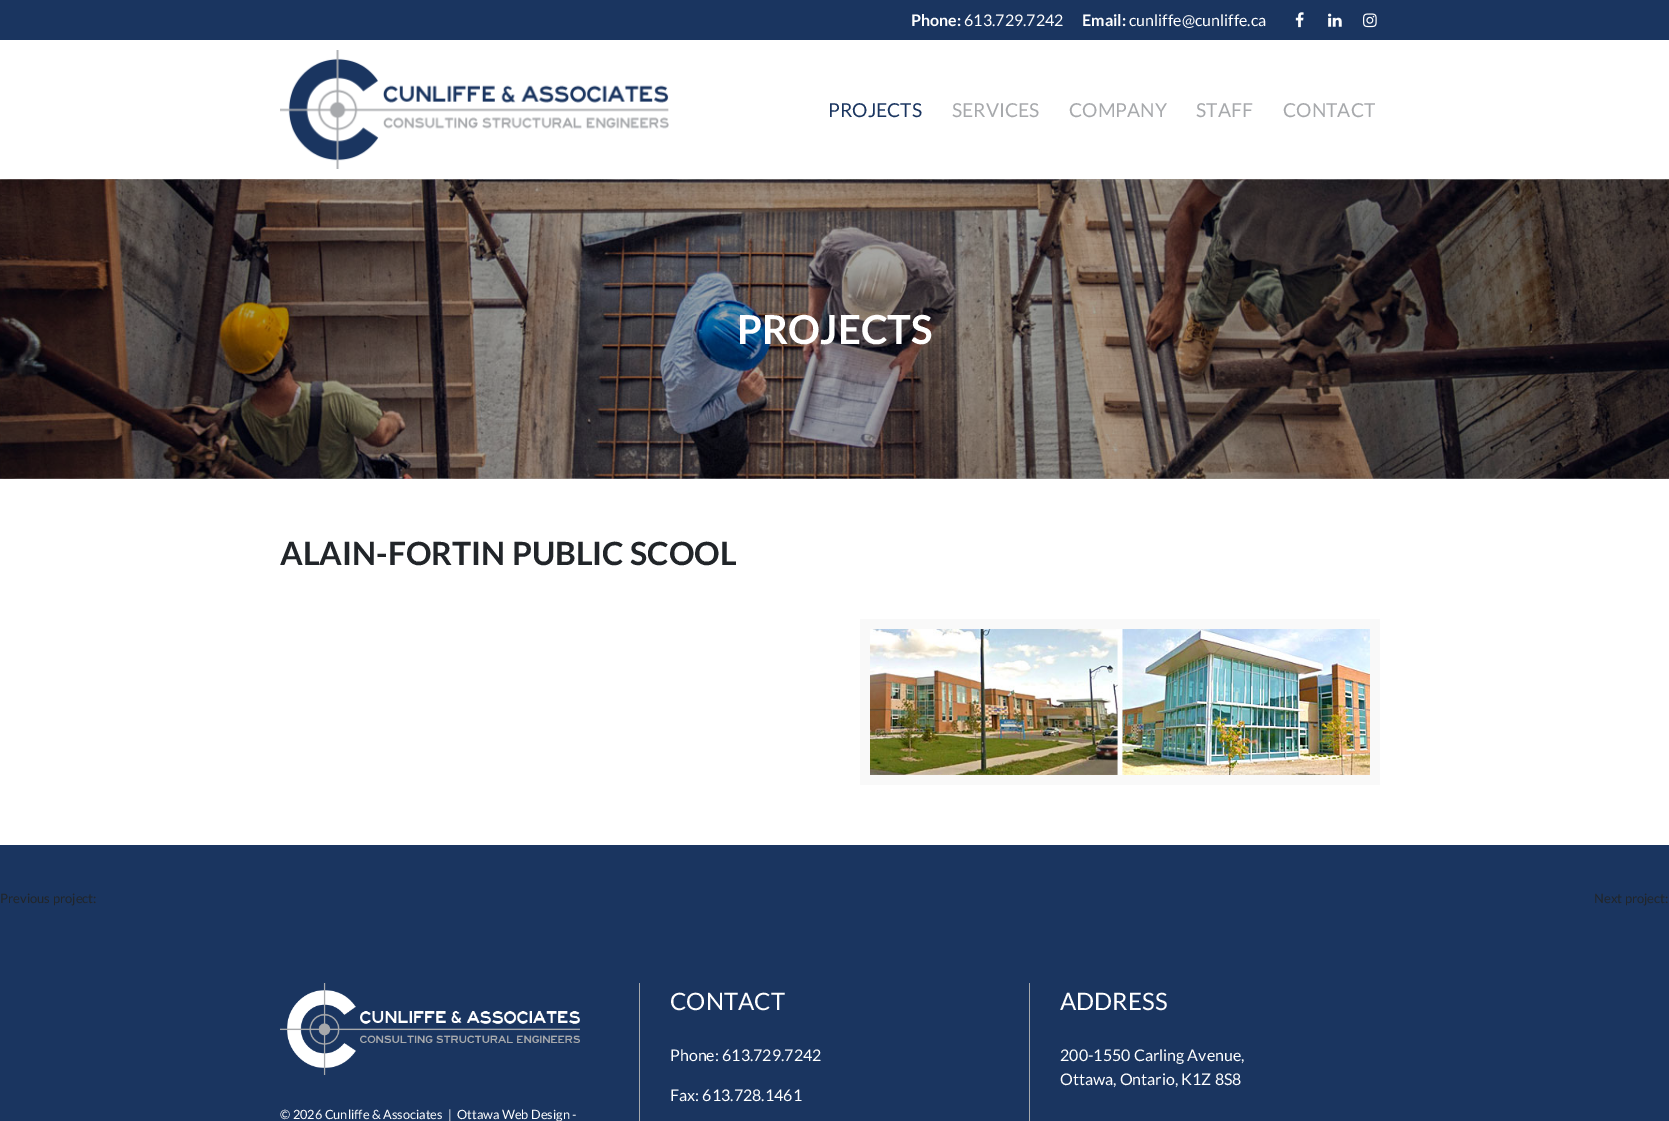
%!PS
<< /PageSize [1669 1121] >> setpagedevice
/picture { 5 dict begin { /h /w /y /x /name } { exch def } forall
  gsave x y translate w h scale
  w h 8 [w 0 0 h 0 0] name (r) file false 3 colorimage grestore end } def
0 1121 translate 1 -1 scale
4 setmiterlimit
0.102 0.208 0.376 setrgbcolor
0 0 1669 1121 rectfill
1 setgray
0 40 1669 805 rectfill
/Lato-Bold [16 0 0 -16 0 0] selectfont
911 26 moveto (Phone:) show
/Lato-Regular [16 0 0 -16 0 0] selectfont
964 26 moveto (613.729.7242) show
/Lato-Bold [16 0 0 -16 0 0] selectfont
1082 26 moveto (Email:) show
/Lato-Regular [16 0 0 -16 0 0] selectfont
1129 26 moveto (cunliffe@cunliffe.ca) show
(img1.rgb) 1295 12 9 16 picture
(img2.rgb) 1328 13 14 14 picture
(img3.rgb) 1363 13 14 15 picture
(img4.rgb) 280 50 389 119 picture
/Lato-Regular [19.25 0 0 -19.25 0 0] selectfont
0.102 0.208 0.376 setrgbcolor
828 117 moveto (PROJECTS) show
0.655 0.663 0.675 setrgbcolor
952 117 moveto (SERVICES) show
1069 117 moveto (COMPANY) show
1196 117 moveto (STAFF) show
1283 117 moveto (CONTACT) show
(img5.rgb) 0 179 1669 300 picture
/Lato-Bold [40 0 0 -40 0 0] selectfont
1 setgray
737 344 moveto (PROJECTS) show
/Lato-Bold [32 0 0 -32 0 0] selectfont
0.129 0.145 0.161 setrgbcolor
280 565 moveto (ALAIN-FORTIN PUBLIC SCOOL) show
0.976 setgray
860 619 520 166 rectfill
(img6.rgb) 870 629 500 146 picture
/Lato-Regular [13 0 0 -13 0 0] selectfont
0.129 0.145 0.161 setrgbcolor
0 903 moveto (Previous project:) show
1594 903 moveto (Next project:) show
0.655 0.663 0.675 setrgbcolor
1029 983 1 138 rectfill
/Lato-Regular [24 0 0 -24 0 0] selectfont
1 setgray
670 1010 moveto (CONTACT) show
/Lato-Regular [16 0 0 -16 0 0] selectfont
670 1061 moveto (Phone: 613.729.7242) show
670 1101 moveto (Fax: 613.728.1461) show
/Lato-Regular [24 0 0 -24 0 0] selectfont
1060 1010 moveto (ADDRESS) show
/Lato-Regular [16 0 0 -16 0 0] selectfont
1060 1061 moveto (200-1550 Carling Avenue,) show
1060 1085 moveto (Ottawa, Ontario, K1Z 8S8) show
0.655 0.663 0.675 setrgbcolor
639 983 1 138 rectfill
(img7.rgb) 280 983 300 92 picture
/Lato-Regular [12.75 0 0 -12.75 0 0] selectfont
1 setgray
280 1119 moveto (© 2026 Cunliffe & Associates  |) show
457 1119 moveto (Ottawa Web Design -) show
showpage
